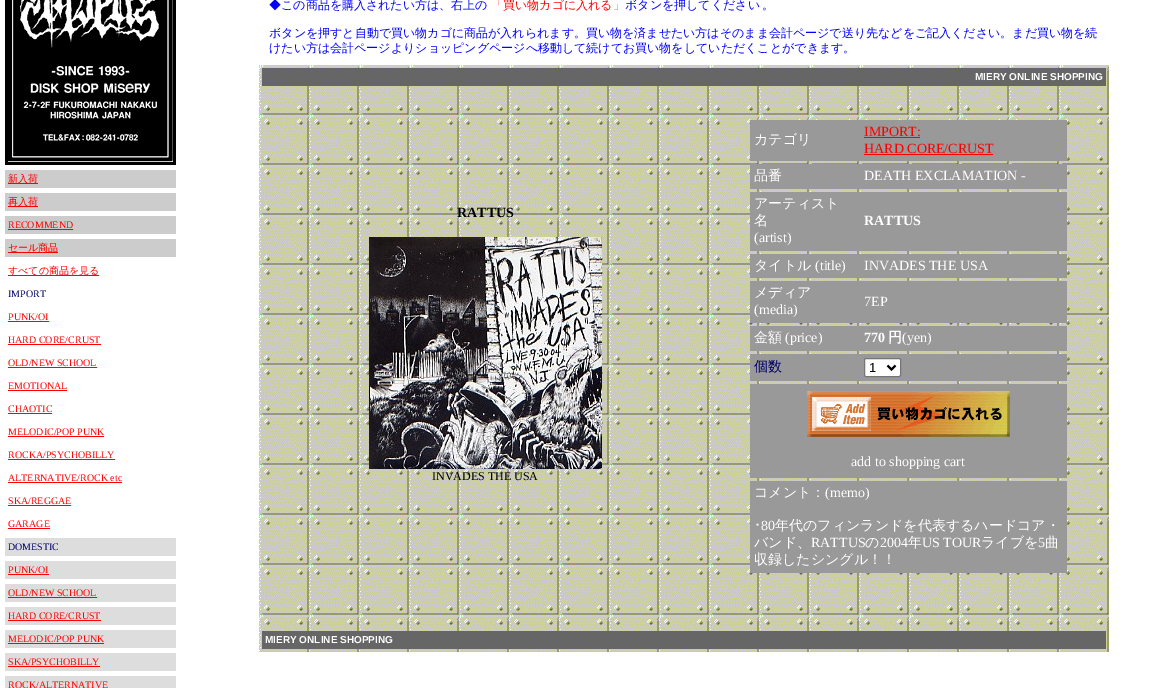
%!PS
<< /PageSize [1156 688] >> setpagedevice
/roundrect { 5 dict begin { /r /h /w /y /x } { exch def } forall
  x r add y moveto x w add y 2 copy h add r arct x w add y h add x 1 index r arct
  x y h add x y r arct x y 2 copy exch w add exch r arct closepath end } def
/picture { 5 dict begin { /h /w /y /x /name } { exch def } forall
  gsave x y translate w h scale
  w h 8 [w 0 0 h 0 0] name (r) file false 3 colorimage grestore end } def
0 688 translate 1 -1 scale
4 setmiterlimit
1 setgray
0 0 1156 688 rectfill
0 setgray
5 0 171 165 rectfill
(img1.rgb) 8 0 165 162 picture
0.8 setgray
5 170 171 18 rectfill
1 0 0 setrgbcolor
8 183 30 1 rectfill
/WenQuanYiZenHei-Medium [10 0 0 -10 0 0] selectfont
8 182 moveto (新入荷) show
0.8 setgray
5 193 171 18 rectfill
1 0 0 setrgbcolor
8 206 30 1 rectfill
8 205 moveto (再入荷) show
0.8 setgray
5 216 171 18 rectfill
/LiberationSerif-Regular [10 0 0 -10 0 0] selectfont
1 0 0 setrgbcolor
8 228 moveto (RECOMMEND) show
8 229 65 1 rectfill
0.8 setgray
5 239 171 18 rectfill
1 0 0 setrgbcolor
8 252 50 1 rectfill
/WenQuanYiZenHei-Medium [10 0 0 -10 0 0] selectfont
8 251 moveto (セール商品) show
8 275 91 1 rectfill
8 274 moveto (すべての商品を見る) show
/LiberationSerif-Regular [10 0 0 -10 0 0] selectfont
0 0 0.4 setrgbcolor
8 297 moveto (IMPORT) show
1 0 0 setrgbcolor
8 320 moveto (PUNK/OI) show
8 321 41 1 rectfill
8 343 moveto (HARD CORE/CRUST) show
8 344 93 1 rectfill
8 366 moveto (OLD/NEW SCHOOL) show
8 367 89 1 rectfill
8 389 moveto (EMOTIONAL) show
8 390 59 1 rectfill
8 412 moveto (CHAOTIC) show
8 413 44 1 rectfill
8 435 moveto (MELODIC/POP PUNK) show
8 436 96 1 rectfill
8 458 moveto (ROCKA/PSYCHOBILLY) show
8 459 107 1 rectfill
8 481 moveto (ALTERNATIVE/ROCK etc) show
8 482 114 1 rectfill
8 504 moveto (SKA/REGGAE) show
8 505 63 1 rectfill
8 527 moveto (GARAGE) show
8 528 42 1 rectfill
0.867 setgray
5 538 171 18 rectfill
0 0 0.4 setrgbcolor
8 550 moveto (DOMESTIC) show
0.867 setgray
5 561 171 18 rectfill
1 0 0 setrgbcolor
8 573 moveto (PUNK/OI) show
8 574 41 1 rectfill
0.867 setgray
5 584 171 18 rectfill
1 0 0 setrgbcolor
8 596 moveto (OLD/NEW SCHOOL) show
8 597 89 1 rectfill
0.867 setgray
5 607 171 18 rectfill
1 0 0 setrgbcolor
8 619 moveto (HARD CORE/CRUST) show
8 620 93 1 rectfill
0.867 setgray
5 630 171 18 rectfill
1 0 0 setrgbcolor
8 642 moveto (MELODIC/POP PUNK) show
8 643 96 1 rectfill
0.867 setgray
5 653 171 18 rectfill
1 0 0 setrgbcolor
8 665 moveto (SKA/PSYCHOBILLY) show
8 666 92 1 rectfill
0.867 setgray
5 676 171 12 rectfill
1 0 0 setrgbcolor
8 688 moveto (ROCK/ALTERNATIVE) show
/WenQuanYiZenHei-Medium [12 0 0 -12 0 0] selectfont
0 0 1 setrgbcolor
269 9 moveto (◆この商品を購入されたい方は、右上の) show
1 0 0 setrgbcolor
491 9 moveto (「買い物カゴに入れる」) show
0 0 1 setrgbcolor
625 9 moveto (ボタンを押してください) show
762 9 moveto (。) show
269 37 moveto (ボタンを押すと自動で買い物カゴに商品が入れられます。買い物を済ませたい方はそのまま会計ページで送り先などをご記入ください。まだ買い物を続) show
269 52 moveto (けたい方は会計ページよりショッピングページへ移動して続けてお買い物をしていただくことができます。) show
(img2.rgb) 259 65 850 587 picture
0.4 setgray
262 68 844 18 rectfill
/LiberationSans-Bold [10 0 0 -10 0 0] selectfont
1 setgray
975 80 moveto (MIERY ONLINE SHOPPING) show
/LiberationSerif-Bold [14 0 0 -14 0 0] selectfont
0 setgray
457 217 moveto (RATTUS) show
(img3.rgb) 369 237 233 232 picture
/LiberationSerif-Regular [12 0 0 -12 0 0] selectfont
432 480 moveto (INVADES THE USA) show
0.6 setgray
750 120 317 41 rectfill
/WenQuanYiZenHei-Medium [14 0 0 -14 0 0] selectfont
1 setgray
754 144 moveto (カテゴリ) show
/LiberationSerif-Regular [14 0 0 -14 0 0] selectfont
1 0 0 setrgbcolor
864 136 moveto (IMPORT:) show
864 137 56 1 rectfill
864 153 moveto (HARD CORE/CRUST) show
864 154 129 1 rectfill
0.6 setgray
750 164 317 25 rectfill
/WenQuanYiZenHei-Medium [14 0 0 -14 0 0] selectfont
1 setgray
754 180 moveto (品番) show
/LiberationSerif-Regular [14 0 0 -14 0 0] selectfont
864 180 moveto (DEATH EXCLAMATION -) show
0.6 setgray
750 192 317 59 rectfill
/WenQuanYiZenHei-Medium [14 0 0 -14 0 0] selectfont
1 setgray
754 208 moveto (アーティスト) show
754 225 moveto (名) show
/LiberationSerif-Regular [14 0 0 -14 0 0] selectfont
754 242 moveto (\(artist\)) show
/LiberationSerif-Bold [14 0 0 -14 0 0] selectfont
864 225 moveto (RATTUS) show
0.6 setgray
750 254 317 24 rectfill
/WenQuanYiZenHei-Medium [14 0 0 -14 0 0] selectfont
1 setgray
754 270 moveto (タイトル) show
/LiberationSerif-Regular [14 0 0 -14 0 0] selectfont
815 270 moveto (\(title\)) show
864 270 moveto (INVADES THE USA) show
0.6 setgray
750 281 317 42 rectfill
/WenQuanYiZenHei-Medium [14 0 0 -14 0 0] selectfont
1 setgray
754 297 moveto (メディア) show
/LiberationSerif-Regular [14 0 0 -14 0 0] selectfont
754 314 moveto (\(media\)) show
864 306 moveto (7EP) show
0.6 setgray
750 326 317 25 rectfill
/WenQuanYiZenHei-Medium [14 0 0 -14 0 0] selectfont
1 setgray
754 342 moveto (金額) show
/LiberationSerif-Regular [14 0 0 -14 0 0] selectfont
785 342 moveto (\(price\)) show
/LiberationSerif-Bold [14 0 0 -14 0 0] selectfont
864 342 moveto (770) show
/WenQuanYiZenHei-Bold [14 0 0 -14 0 0] selectfont
888 342 moveto (円) show
/LiberationSerif-Regular [14 0 0 -14 0 0] selectfont
902 342 moveto (\(yen\)) show
0.6 setgray
750 354 317 27 rectfill
/WenQuanYiZenHei-Medium [14 0 0 -14 0 0] selectfont
0 0 0.4 setrgbcolor
754 371 moveto (個数) show
1 setgray
864.5 358.5 36 18 1.5 roundrect gsave fill grestore
0.463 setgray
stroke
0 setgray
2 setlinewidth
newpath 887.5 365.5 moveto 891.5 369.5 lineto 895.5 365.5 lineto stroke
/LiberationSans-Regular [13 0 0 -13 0 0] selectfont
869 372 moveto (1) show
0.6 setgray
750 384 317 94 rectfill
(img4.rgb) 807 391 203 46 picture
/LiberationSerif-Regular [14 0 0 -14 0 0] selectfont
1 setgray
851 466 moveto (add to shopping cart) show
0.6 setgray
750 481 317 92 rectfill
/WenQuanYiZenHei-Medium [14 0 0 -14 0 0] selectfont
1 setgray
754 497 moveto (コメント：) show
/LiberationSerif-Regular [14 0 0 -14 0 0] selectfont
825 497 moveto (\(memo\)) show
/IPAGothic-Regular [14 0 0 -14 0 0] selectfont
754 530 moveto (･) show
/LiberationSerif-Regular [14 0 0 -14 0 0] selectfont
761 530 moveto (80) show
/WenQuanYiZenHei-Medium [14 0 0 -14 0 0] selectfont
775 530 moveto (年代のフィンランドを代表するハードコア・) show
754 547 moveto (バンド、) show
/LiberationSerif-Regular [14 0 0 -14 0 0] selectfont
811 547 moveto (RATTUS) show
/WenQuanYiZenHei-Medium [14 0 0 -14 0 0] selectfont
865 547 moveto (の) show
/LiberationSerif-Regular [14 0 0 -14 0 0] selectfont
880 547 moveto (2004) show
/WenQuanYiZenHei-Medium [14 0 0 -14 0 0] selectfont
908 547 moveto (年) show
/LiberationSerif-Regular [14 0 0 -14 0 0] selectfont
922 547 moveto (US TOUR) show
/WenQuanYiZenHei-Medium [14 0 0 -14 0 0] selectfont
981 547 moveto (ライブを) show
/LiberationSerif-Regular [14 0 0 -14 0 0] selectfont
1038 547 moveto (5) show
/WenQuanYiZenHei-Medium [14 0 0 -14 0 0] selectfont
1045 547 moveto (曲) show
754 564 moveto (収録したシングル！！) show
0.4 setgray
262 631 844 18 rectfill
/LiberationSans-Bold [10 0 0 -10 0 0] selectfont
1 setgray
265 643 moveto (MIERY ONLINE SHOPPING) show
showpage
